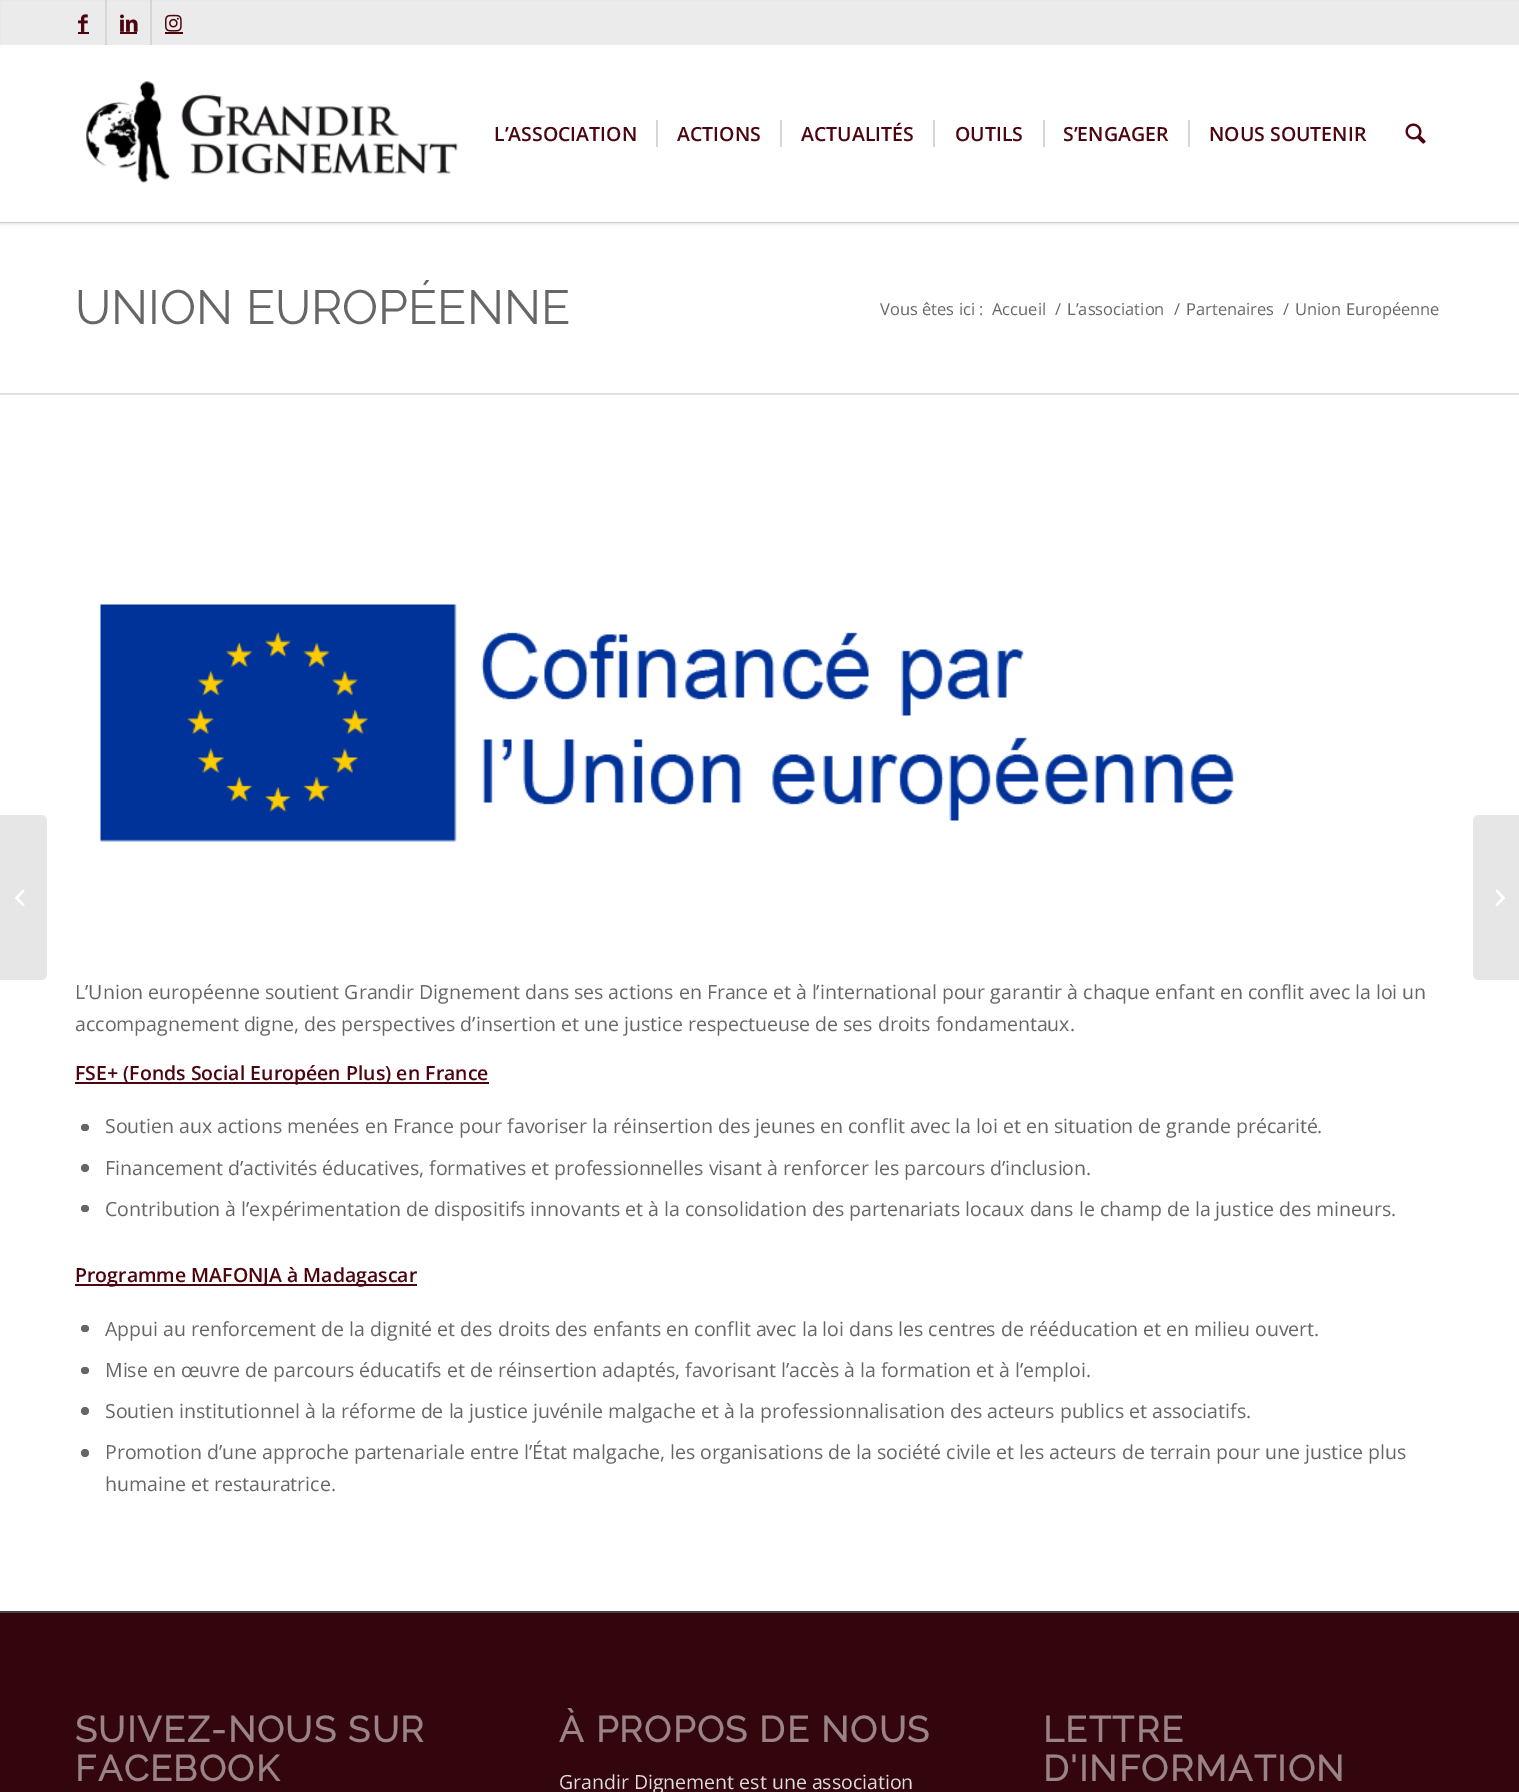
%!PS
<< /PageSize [1519 1792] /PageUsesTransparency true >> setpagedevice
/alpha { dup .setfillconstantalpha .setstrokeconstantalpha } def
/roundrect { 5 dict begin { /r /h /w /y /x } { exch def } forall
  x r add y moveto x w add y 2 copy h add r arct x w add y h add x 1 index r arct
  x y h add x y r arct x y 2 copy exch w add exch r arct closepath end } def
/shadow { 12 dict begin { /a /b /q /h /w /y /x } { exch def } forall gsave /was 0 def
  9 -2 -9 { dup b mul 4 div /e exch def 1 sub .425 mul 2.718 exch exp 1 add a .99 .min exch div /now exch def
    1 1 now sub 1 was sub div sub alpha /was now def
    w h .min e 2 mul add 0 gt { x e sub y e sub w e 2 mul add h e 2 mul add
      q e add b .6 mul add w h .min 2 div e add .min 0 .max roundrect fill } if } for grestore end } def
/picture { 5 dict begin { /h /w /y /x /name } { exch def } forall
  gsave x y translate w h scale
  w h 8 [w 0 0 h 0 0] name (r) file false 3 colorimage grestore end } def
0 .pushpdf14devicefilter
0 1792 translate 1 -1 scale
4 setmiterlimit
1 setgray
0 0 1519 1792 rectfill
0.882 setgray
0 222 1519 1 rectfill
0 setgray
-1 -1 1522 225 0 1.5 0.1 shadow
0.922 setgray
1 1 1518 44 rectfill
0.839 setgray
105 0 2 45 rectfill
(img1.rgb) 78 14 10 18 picture
0.298 0.016 0.059 setrgbcolor
78 32 11 2 rectfill
0.839 setgray
150 0 2 45 rectfill
(img2.rgb) 120 14 18 18 picture
0.298 0.016 0.059 setrgbcolor
120 32 17 2 rectfill
(img3.rgb) 165 14 17 18 picture
165 32 18 2 rectfill
1 setgray
0 45 1519 177 rectfill
(img4.rgb) 86 81 372 103 picture
/OpenSans-SemiBold [19.5 0 0 -19.5 0 0] selectfont
0.298 0.016 0.059 setrgbcolor
494 141 moveto (L’ASSOCIATION) show
677 141 moveto (ACTIONS) show
0.839 setgray
656 120 2 27 rectfill
0.298 0.016 0.059 setrgbcolor
801 141 moveto (ACTUALITÉS) show
0.839 setgray
780 120 2 27 rectfill
0.298 0.016 0.059 setrgbcolor
955 141 moveto (OUTILS) show
0.839 setgray
933 120 2 27 rectfill
0.298 0.016 0.059 setrgbcolor
1063 141 moveto (S’ENGAGER) show
0.839 setgray
1043 120 2 27 rectfill
0.298 0.016 0.059 setrgbcolor
1209 141 moveto (NOUS SOUTENIR) show
0.839 setgray
1188 120 2 27 rectfill
(img5.rgb) 1405 123 21 21 picture
0.902 setgray
newpath 0 815 moveto 41 815 lineto 44.5 815 47 817.5 47 821 curveto 47 974 lineto 47 977.5 44.5 980 41 980 curveto 0 980 lineto closepath fill
(img6.rgb) 15 889 10 17 picture
/Raleway-Thin [48 0 0 -48 0 0] selectfont
0.4 setgray
75 324 moveto (UNION EUROPÉENNE) show
/OpenSans-Regular [16.5 0 0 -16.5 0 0] selectfont
880 315 moveto (Vous êtes ici :) show
992 315 moveto (Accueil) show
1055 315 moveto (/) show
1067 315 moveto (L’association) show
1174 315 moveto (/) show
1186 315 moveto (Partenaires) show
1283 315 moveto (/) show
1295 315 moveto (Union Européenne) show
0.882 setgray
0 393 1519 2 rectfill
(img7.rgb) 100 604 1134 238 picture
/OpenSans-Regular [19.5 0 0 -19.5 0 0] selectfont
0.4 setgray
75 999 moveto (L’Union européenne soutient Grandir Dignement dans ses actions en France et à l’international pour garantir à chaque enfant en conflit avec la loi un) show
75 1031 moveto (accompagnement digne, des perspectives d’insertion et une justice respectueuse de ses droits fondamentaux.) show
0.298 0.016 0.059 setrgbcolor
75 1082 414 2 rectfill
/OpenSans-SemiBold [19.5 0 0 -19.5 0 0] selectfont
75 1080 moveto (FSE+ \(Fonds Social Européen Plus\) en France) show
0.4 setgray
81 1124 8 7 3.5 roundrect fill
/OpenSans-Regular [19.5 0 0 -19.5 0 0] selectfont
105 1133 moveto (Soutien aux actions menées en France pour favoriser la réinsertion des jeunes en conflit avec la loi et en situation de grande précarité.) show
newpath 85 1168 4 0 360 arc closepath fill
105 1175 moveto (Financement d’activités éducatives, formatives et professionnelles visant à renforcer les parcours d’inclusion.) show
81 1205 8 7 3.5 roundrect fill
105 1216 moveto (Contribution à l’expérimentation de dispositifs innovants et à la consolidation des partenariats locaux dans le champ de la justice des mineurs.) show
0.298 0.016 0.059 setrgbcolor
75 1284 342 2 rectfill
/OpenSans-SemiBold [19.5 0 0 -19.5 0 0] selectfont
75 1282 moveto (Programme MAFONJA à Madagascar) show
0.4 setgray
81 1325 8 7 3.5 roundrect fill
/OpenSans-Regular [19.5 0 0 -19.5 0 0] selectfont
105 1336 moveto (Appui au renforcement de la dignité et des droits des enfants en conflit avec la loi dans les centres de rééducation et en milieu ouvert.) show
81 1367 8 7 3.5 roundrect fill
105 1377 moveto (Mise en œuvre de parcours éducatifs et de réinsertion adaptés, favorisant l’accès à la formation et à l’emploi.) show
newpath 85 1411 4 0 360 arc closepath fill
105 1418 moveto (Soutien institutionnel à la réforme de la justice juvénile malgache et à la professionnalisation des acteurs publics et associatifs.) show
newpath 85 1453 4 0 360 arc closepath fill
105 1459 moveto (Promotion d’une approche partenariale entre l’État malgache, les organisations de la société civile et les acteurs de terrain pour une justice plus) show
105 1491 moveto (humaine et restauratrice.) show
0.2 0.024 0.055 setrgbcolor
0 1613 1519 179 rectfill
0.267 setgray
0 1611 1519 2 rectfill
/Raleway-Bold [36 0 0 -36 0 0] selectfont
0.6 0.514 0.529 setrgbcolor
75 1742 moveto 1.5 0 (SUIVEZ-NOUS SUR) ashow
75 1781 moveto 1.5 0 (FACEBOOK) ashow
559 1742 moveto 1.5 0 (À PROPOS DE NOUS) ashow
/OpenSans-Regular [19.5 0 0 -19.5 0 0] selectfont
0.867 setgray
559 1789 moveto (Grandir Dignement est une association) show
/Raleway-Bold [36 0 0 -36 0 0] selectfont
0.6 0.514 0.529 setrgbcolor
1043 1742 moveto 1.5 0 (LETTRE) ashow
1043 1781 moveto 1.5 0 (D'INFORMATION) ashow
0.902 setgray
newpath 1479 815 moveto 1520 815 lineto 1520 980 lineto 1479 980 lineto 1475.5 980 1473 977.5 1473 974 curveto 1473 821 lineto 1473 817.5 1475.5 815 1479 815 curveto closepath fill
(img8.rgb) 1495 889 10 17 picture
.poppdf14devicefilter showpage
